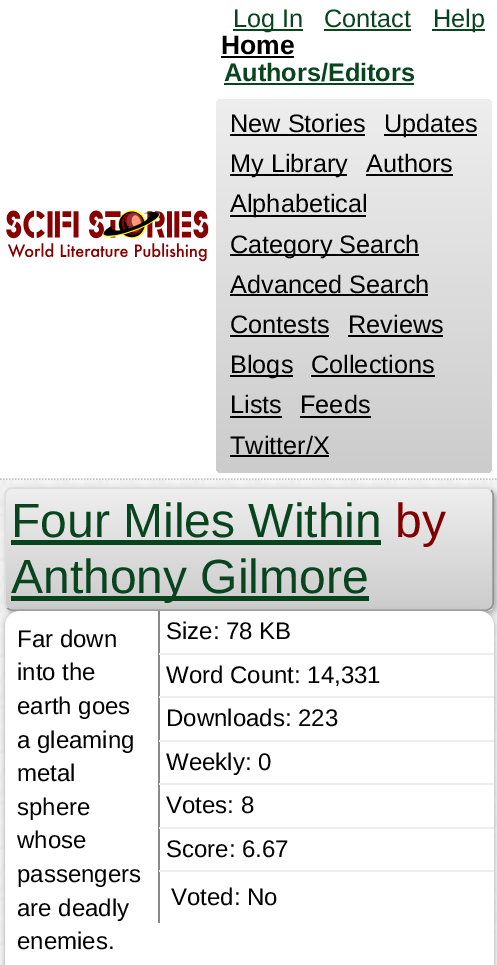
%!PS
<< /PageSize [497 965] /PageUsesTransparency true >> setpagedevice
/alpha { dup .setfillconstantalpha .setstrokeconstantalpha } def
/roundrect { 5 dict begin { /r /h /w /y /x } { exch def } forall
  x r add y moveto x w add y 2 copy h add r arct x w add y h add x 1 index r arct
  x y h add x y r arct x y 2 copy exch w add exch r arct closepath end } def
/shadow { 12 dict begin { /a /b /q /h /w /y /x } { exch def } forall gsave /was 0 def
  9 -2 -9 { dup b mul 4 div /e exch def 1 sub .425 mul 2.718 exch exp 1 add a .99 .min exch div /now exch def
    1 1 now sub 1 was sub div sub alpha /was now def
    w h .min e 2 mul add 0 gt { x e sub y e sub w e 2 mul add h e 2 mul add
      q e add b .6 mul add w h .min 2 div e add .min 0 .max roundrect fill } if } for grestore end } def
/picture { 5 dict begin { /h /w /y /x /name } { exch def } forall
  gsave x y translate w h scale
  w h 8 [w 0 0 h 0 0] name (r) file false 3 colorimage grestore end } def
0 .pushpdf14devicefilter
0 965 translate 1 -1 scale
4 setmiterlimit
1 setgray
0 0 497 965 rectfill
(img1.rgb) 0 480 497 485 picture
0.753 setgray
1.5 setlinewidth
[1.5 1.5] 0 setdash
newpath 0 479 moveto 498 479 lineto stroke
(img2.rgb) 6 210 203 52 picture
0.031 0.271 0.118 setrgbcolor
233 29 70 2 rectfill
/LiberationSans-Regular [25.25 0 0 -25.25 0 0] selectfont
233 27 moveto (Log In) show
324 27 moveto (Contact) show
324 29 87 2 rectfill
432 29 53 2 rectfill
433 27 moveto (Help) show
/LiberationSans-Bold [26.5 0 0 -26.5 0 0] selectfont
0 setgray
221 54 moveto (Home) show
221 56 73 2 rectfill
/LiberationSans-Bold [25.25 0 0 -25.25 0 0] selectfont
0.031 0.271 0.118 setrgbcolor
224 81 moveto (Authors/Editors) show
224 83 190 2 rectfill
gsave 216 99 276 374 5 roundrect clip newpath
<< /ShadingType 2 /ColorSpace /DeviceRGB /Coords [354 99 354 473] /Extend [true true] /Function << /FunctionType 2 /Domain [0 1] /C0 [0.933 0.933 0.933] /C1 [0.8 0.8 0.8] /N 1 >> >> shfill grestore
/LiberationSans-Regular [25.25 0 0 -25.25 0 0] selectfont
0 setgray
230 132 moveto (New Stories) show
230 134 135 2 rectfill
384 134 93 2 rectfill
384 132 moveto (Updates) show
230 174 117 2 rectfill
230 172 moveto (My Library) show
366 172 moveto (Authors) show
366 174 87 2 rectfill
230 215 136 2 rectfill
230 212 moveto (Alphabetical) show
230 254 189 2 rectfill
230 253 moveto (Category Search) show
230 293 moveto (Advanced Search) show
230 294 198 2 rectfill
230 333 moveto (Contests) show
230 335 99 2 rectfill
348 333 moveto (Reviews) show
348 335 95 2 rectfill
230 375 63 2 rectfill
230 373 moveto (Blogs) show
311 373 moveto (Collections) show
311 375 124 2 rectfill
230 413 moveto (Lists) show
230 416 52 2 rectfill
300 413 moveto (Feeds) show
300 416 71 2 rectfill
230 454 moveto (Twitter/X) show
230 455 99 2 rectfill
0.667 setgray
8 491 489 123 8 3.5 1 shadow
gsave
5 488 489 123 8 roundrect clip newpath
gsave newpath 5 489 moveto 494 489 lineto 494 609 lineto 5 609 lineto closepath clip newpath
<< /ShadingType 2 /ColorSpace /DeviceRGB /Coords [249 489 249 609] /Extend [true true] /Function << /FunctionType 2 /Domain [0 1] /C0 [0.933 0.933 0.933] /C1 [0.8 0.8 0.8] /N 1 >> >> shfill grestore
gsave newpath 5 609 moveto 494 609 lineto 494 611 lineto 5 611 lineto closepath clip newpath
<< /ShadingType 2 /ColorSpace /DeviceRGB /Coords [249 609 249 729] /Extend [true true] /Function << /FunctionType 2 /Domain [0 1] /C0 [0.933 0.933 0.933] /C1 [0.8 0.8 0.8] /N 1 >> >> shfill grestore
grestore
0.576 setgray
[] 0 setdash
newpath 491 490 moveto 492 491.5 493 493 493 494.5 curveto 493 603.5 lineto 493 605 492 606.5 491 608 curveto 489.5 609 488 610 486.5 610 curveto 11.5 610 lineto 10 610 8.5 609 7 608 curveto stroke
0.867 setgray
newpath 7 608 moveto 6 606.5 5.5 605 5 603.5 curveto 5 494.5 lineto 5 493 6 491.5 7 490 curveto 8.5 489 10 488 11.5 488 curveto 486.5 488 lineto 488 488 489.5 489 491 490 curveto stroke
/LiberationSans-Regular [48 0 0 -48 0 0] selectfont
0.031 0.271 0.118 setrgbcolor
11 537 moveto (Four Miles Within) show
11 540 370 5 rectfill
0.502 0 0 setrgbcolor
395 537 moveto (by) show
0.031 0.271 0.118 setrgbcolor
11 596 358 5 rectfill
0.667 setgray
5 611 489 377 15 2.5 1 shadow
0.031 0.271 0.118 setrgbcolor
11 593 moveto (Anthony Gilmore) show
1 setgray
5 611 489 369 15 roundrect fill
/LiberationSans-Regular [24 0 0 -24 0 0] selectfont
0 setgray
17 647 moveto (Far down) show
17 680 moveto (into the) show
17 714 moveto (earth goes) show
17 748 moveto (a gleaming) show
17 781 moveto (metal) show
17 815 moveto (sphere) show
17 848 moveto (whose) show
17 882 moveto (passengers) show
17 916 moveto (are deadly) show
17 949 moveto (enemies.) show
0.533 setgray
158 611 2 312 rectfill
0.933 setgray
159 653 335 2 rectfill
0 setgray
166 639 moveto (Size: 78 KB) show
0.933 setgray
159 696 335 2 rectfill
0 setgray
166 683 moveto (Word Count: 14,331) show
0.933 setgray
159 740 335 2 rectfill
0 setgray
166 726 moveto (Downloads: 223) show
0.933 setgray
159 783 335 2 rectfill
0 setgray
166 770 moveto (Weekly: 0) show
0.933 setgray
159 827 335 2 rectfill
0 setgray
166 813 moveto (Votes: 8) show
0.933 setgray
159 870 335 2 rectfill
0 setgray
166 857 moveto (Score: 6.67) show
171 905 moveto (Voted: No) show
.poppdf14devicefilter showpage
